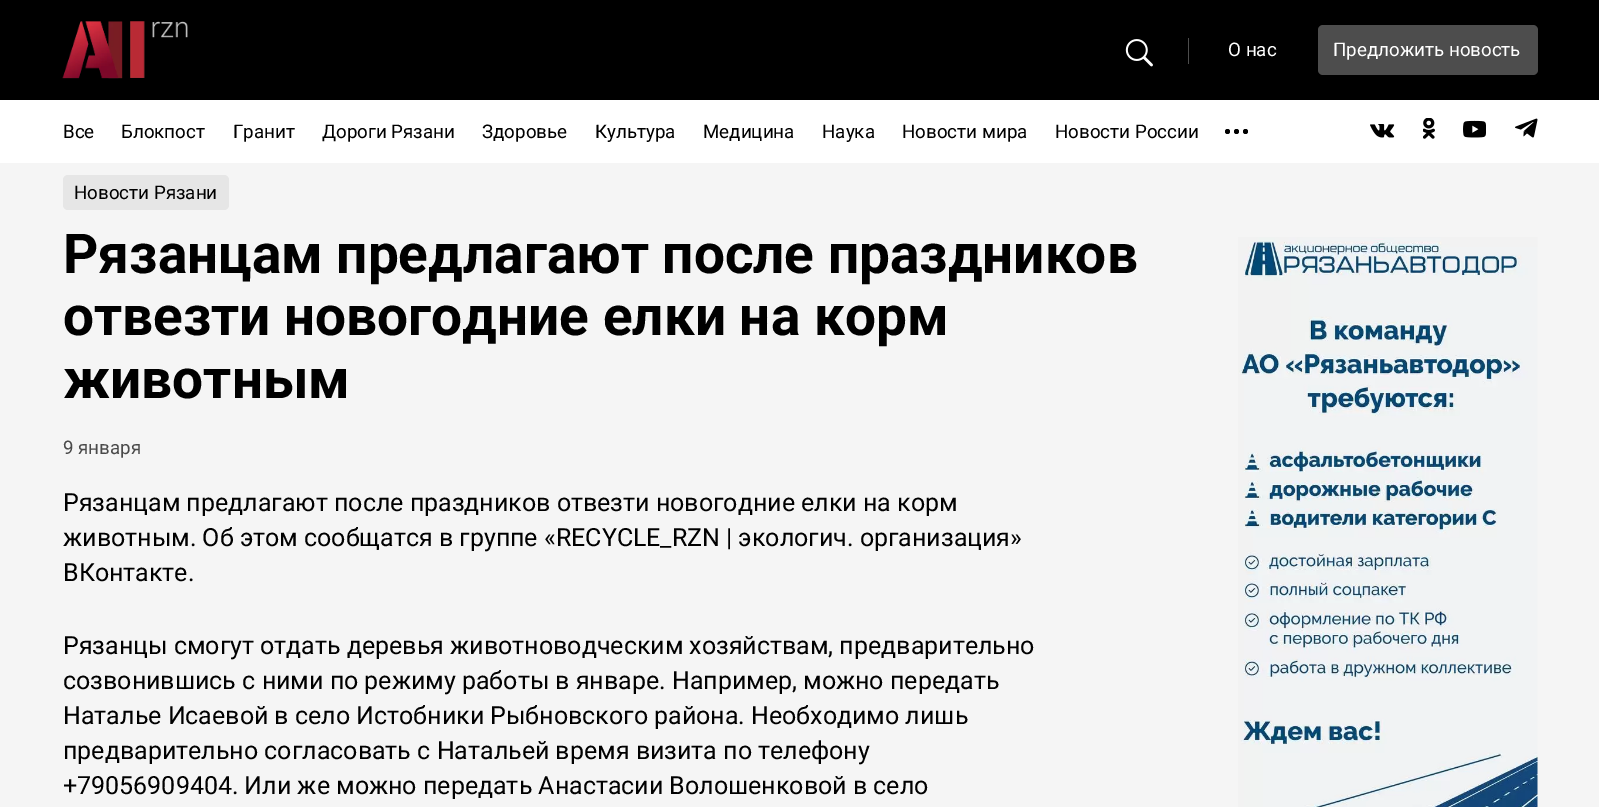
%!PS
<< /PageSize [1599 807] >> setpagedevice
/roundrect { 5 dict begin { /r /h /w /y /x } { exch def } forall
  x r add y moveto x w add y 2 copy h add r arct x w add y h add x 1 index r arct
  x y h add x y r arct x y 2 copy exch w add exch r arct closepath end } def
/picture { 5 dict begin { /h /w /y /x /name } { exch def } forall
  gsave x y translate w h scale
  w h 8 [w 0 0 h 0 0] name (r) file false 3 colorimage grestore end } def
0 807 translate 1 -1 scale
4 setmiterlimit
0.961 setgray
0 0 1599 807 rectfill
0 setgray
0 0 1599 100 rectfill
(img1.rgb) 62 21 126 58 picture
(img2.rgb) 1125 39 28 28 picture
0.302 setgray
1188 38 1 26 rectfill
/Roboto-Regular [18.75 0 0 -18.75 0 0] selectfont
1 setgray
1228 56 moveto (О нас) show
0.302 setgray
1318 25 220 50 5 roundrect fill
1 setgray
1333 56 moveto (Предложить новость) show
0 100 1599 63 rectfill
0 setgray
63 138 moveto (Все) show
121 138 moveto (Блокпост) show
233 138 moveto (Гранит) show
322 138 moveto (Дороги Рязани) show
482 138 moveto (Здоровье) show
595 138 moveto (Культура) show
703 138 moveto (Медицина) show
822 138 moveto (Наука) show
902 138 moveto (Новости мира) show
1055 138 moveto (Новости России) show
newpath 1236.5 131.5 2.5 0 360 arc closepath fill
newpath 1227.5 131.5 2.5 0 360 arc closepath fill
newpath 1245.5 131.5 2.5 0 360 arc closepath fill
(img3.rgb) 1370 124 25 14 picture
(img4.rgb) 1423 118 12 21 picture
(img5.rgb) 1463 120 23 18 picture
(img6.rgb) 1515 118 23 20 picture
0.902 setgray
63 175 166 35 5 roundrect fill
0 setgray
74 199 moveto (Новости Рязани) show
/Roboto-Bold [55 0 0 -55 0 0] selectfont
63 273 moveto (Рязанцам предлагают после праздников) show
63 335 moveto (отвезти новогодние елки на корм) show
63 398 moveto (животным) show
/Roboto-Regular [18.75 0 0 -18.75 0 0] selectfont
0.29 setgray
63 454 moveto (9 января) show
/Roboto-Regular [25 0 0 -25 0 0] selectfont
0 setgray
63 511 moveto (Рязанцам предлагают после праздников отвезти новогодние елки на корм) show
63 546 moveto (животным. Об этом сообщатся в группе «RECYCLE_RZN | экологич. организация») show
63 581 moveto (ВКонтакте.) show
63 654 moveto (Рязанцы смогут отдать деревья животноводческим хозяйствам, предварительно) show
63 689 moveto (созвонившись с ними по режиму работы в январе. Например, можно передать) show
63 724 moveto (Наталье Исаевой в село Истобники Рыбновского района. Необходимо лишь) show
63 759 moveto (предварительно согласовать с Натальей время визита по телефону) show
63 794 moveto (+79056909404. Или же можно передать Анастасии Волошенковой в село) show
(img7.rgb) 1238 237 300 570 picture
showpage
